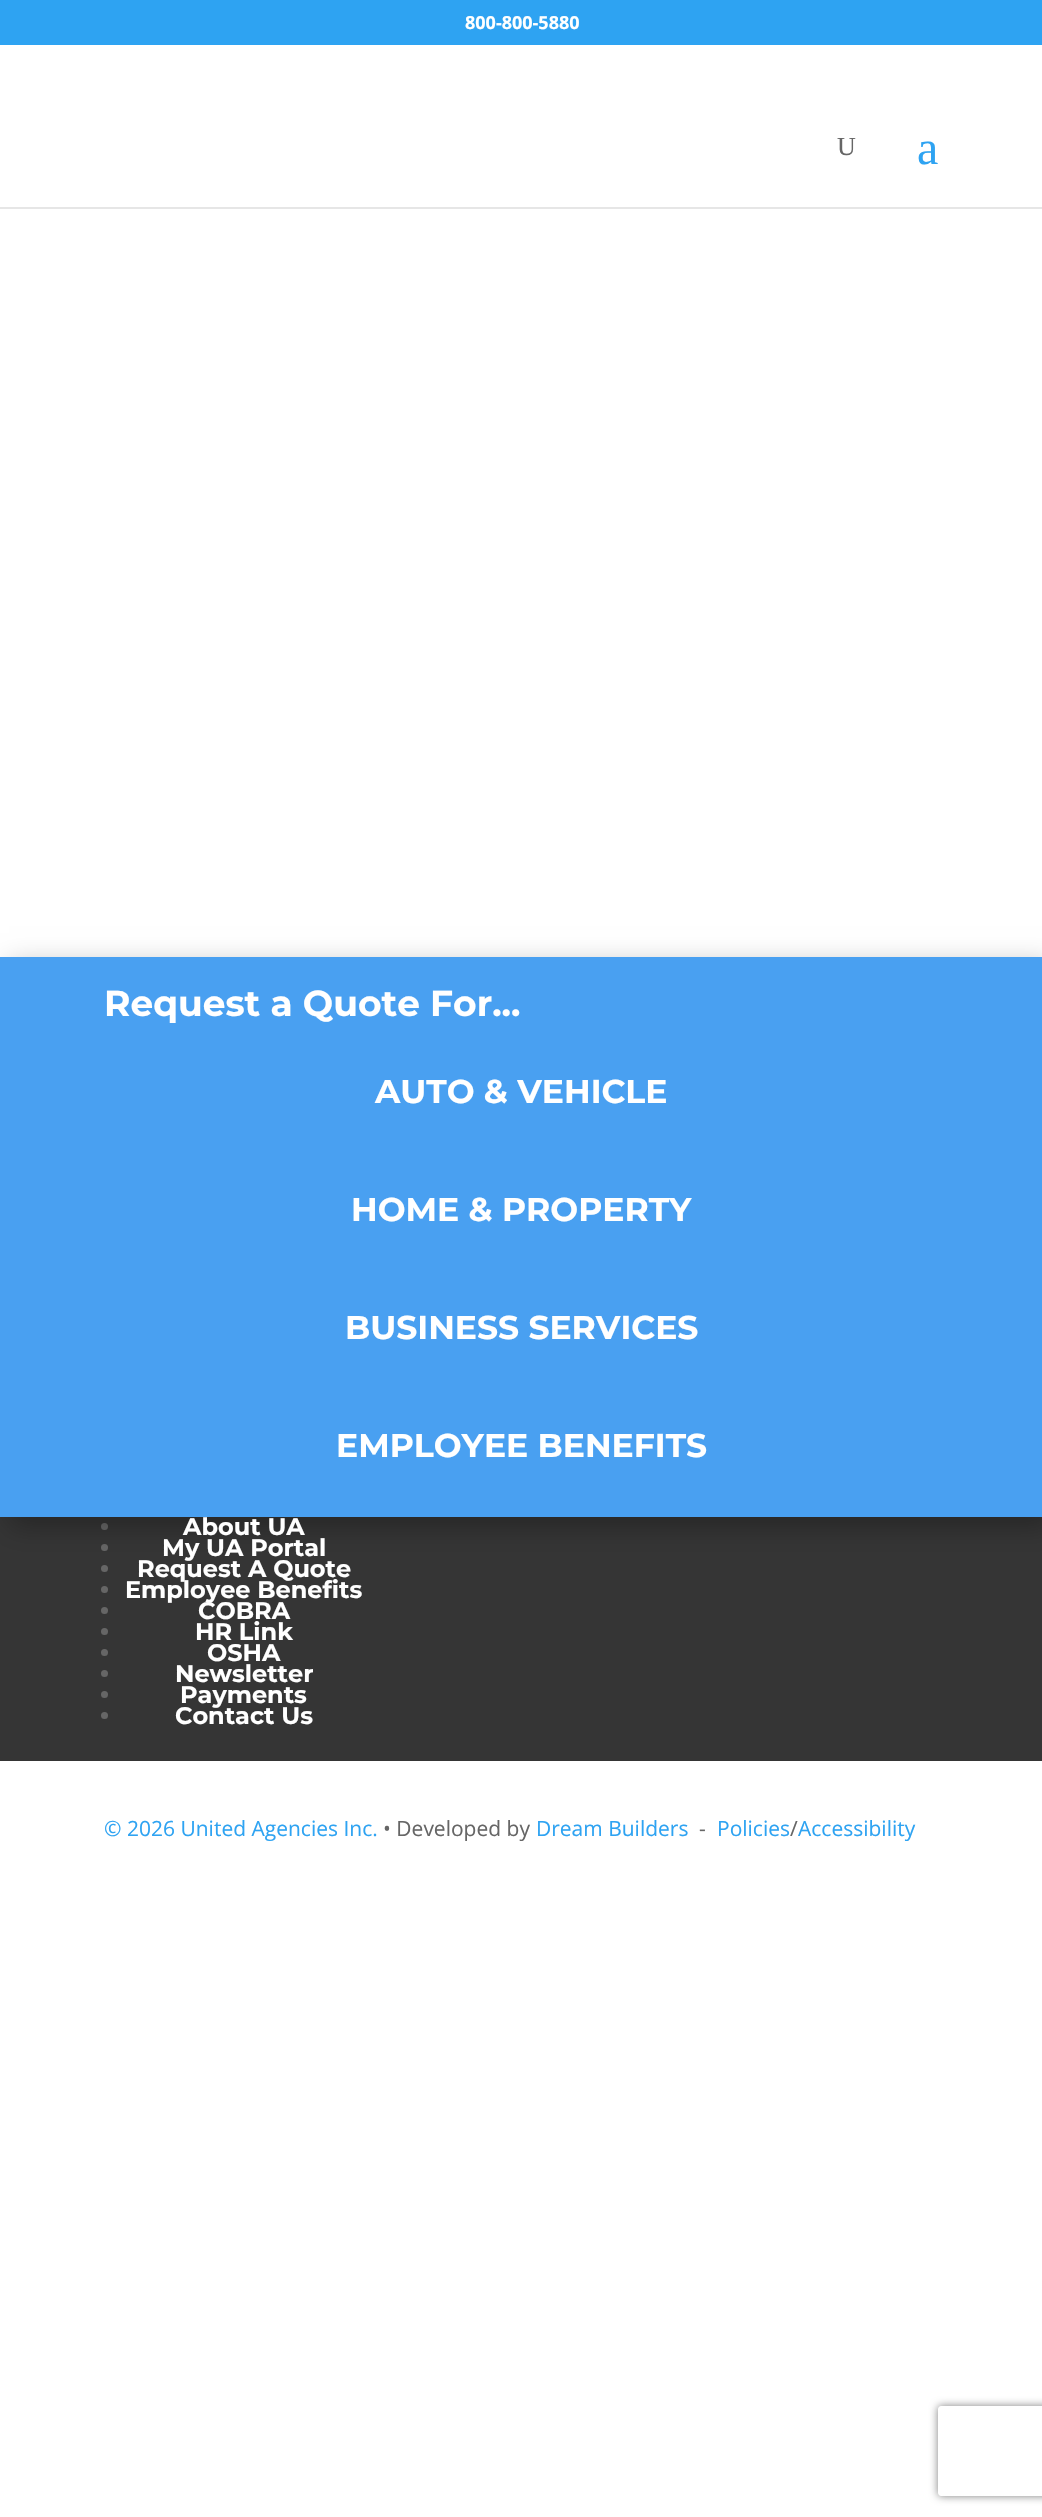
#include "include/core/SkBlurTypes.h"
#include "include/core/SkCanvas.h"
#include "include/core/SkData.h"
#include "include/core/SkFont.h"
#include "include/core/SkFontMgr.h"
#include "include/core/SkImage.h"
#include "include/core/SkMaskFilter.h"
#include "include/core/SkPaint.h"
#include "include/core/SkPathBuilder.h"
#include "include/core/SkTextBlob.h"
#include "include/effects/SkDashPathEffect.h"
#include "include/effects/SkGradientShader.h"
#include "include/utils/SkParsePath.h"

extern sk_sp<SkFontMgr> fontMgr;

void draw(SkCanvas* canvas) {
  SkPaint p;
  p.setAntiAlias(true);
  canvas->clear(SK_ColorWHITE);
  p.setColor(SkColorSetRGB(46, 163, 242));
  canvas->drawRect(SkRect::MakeLTRB(0, 0, 1042, 45), p);
  p.setColor(SkColorSetRGB(230, 230, 230));
  canvas->drawPath(SkPathBuilder().moveTo(0, 207).lineTo(0, 209).lineTo(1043, 209).lineTo(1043, 89).lineTo(1042, 89).lineTo(1042, 207).close().detach(), p);
  p.setColor(SkColorSetRGB(53, 53, 53));
  canvas->drawRect(SkRect::MakeLTRB(0, 1517, 1042, 1761), p);
  p.setColor(SkColorSetRGB(102, 102, 102));
  canvas->drawCircle(104.5f, 1526.5f, 3.5f, p);
  canvas->drawCircle(104.5f, 1547.5f, 3.5f, p);
  canvas->drawCircle(104.5f, 1568.5f, 3.5f, p);
  p.setColor(SkColorSetARGB(77, 0, 0, 0));
  p.setMaskFilter(SkMaskFilter::MakeBlur(kNormal_SkBlurStyle, 13.5f));
  canvas->drawRect(SkRect::MakeLTRB(9, 966, 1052, 1526), p);
  p.setMaskFilter(nullptr);
  p.setColor(SkColorSetRGB(73, 160, 241));
  canvas->drawRect(SkRect::MakeLTRB(0, 957, 1042, 1517), p);
  p.setColor(SkColorSetRGB(102, 102, 102));
  canvas->drawCircle(104.5f, 1589.5f, 3.5f, p);
  canvas->drawCircle(104.5f, 1610.5f, 3.5f, p);
  canvas->drawCircle(104.5f, 1631.5f, 3.5f, p);
  canvas->drawCircle(104.5f, 1652.5f, 3.5f, p);
  canvas->drawCircle(104.5f, 1673.5f, 3.5f, p);
  canvas->drawCircle(104.5f, 1694.5f, 3.5f, p);
  canvas->drawCircle(104.5f, 1715.5f, 3.5f, p);
  canvas->save();
  canvas->clipPath(SkPathBuilder(SkPathFillType::kEvenOdd).moveTo(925, 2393).lineTo(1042, 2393).lineTo(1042, 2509).lineTo(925, 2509).close().moveTo(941, 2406).lineTo(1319, 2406).cubicTo(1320.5f, 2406, 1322, 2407.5f, 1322, 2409).lineTo(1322, 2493).cubicTo(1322, 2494.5f, 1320.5f, 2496, 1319, 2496).lineTo(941, 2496).cubicTo(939.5f, 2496, 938, 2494.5f, 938, 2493).lineTo(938, 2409).cubicTo(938, 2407.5f, 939.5f, 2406, 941, 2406).close().detach(), true);
  p.setColor(SkColorSetRGB(128, 128, 128));
  p.setMaskFilter(SkMaskFilter::MakeBlur(kNormal_SkBlurStyle, 4));
  canvas->drawRoundRect(SkRect::MakeLTRB(938, 2406, 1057, 2496), 3, 3, p);
  p.setMaskFilter(nullptr);
  canvas->restore();
  SkFont font1(fontMgr->matchFamilyStyle("Open Sans", SkFontStyle::Bold()), 18);
  font1.setSubpixel(true);
  p.setColor(SK_ColorWHITE);
  canvas->drawString("800-800-5880", 465, 29, font1, p);
  SkFont font2(fontMgr->matchFamilyStyle("Liberation Serif", SkFontStyle::Normal()), 26);
  font2.setSubpixel(true);
  p.setColor(SkColorSetRGB(102, 102, 102));
  canvas->drawString("U", 837, 155, font2, p);
  SkFont font3(fontMgr->matchFamilyStyle("Liberation Serif", SkFontStyle::Normal()), 48);
  font3.setSubpixel(true);
  p.setColor(SkColorSetRGB(46, 163, 242));
  canvas->drawString("a", 917, 164, font3, p);
  SkFont font4(fontMgr->matchFamilyStyle("Montserrat", SkFontStyle(100, SkFontStyle::kNormal_Width, SkFontStyle::kUpright_Slant)), 36);
  font4.setSubpixel(true);
  p.setColor(SK_ColorWHITE);
  canvas->drawString("Request a Quote For...", 104, 1016, font4, p);
  SkFont font5(fontMgr->matchFamilyStyle("Montserrat", SkFontStyle(100, SkFontStyle::kNormal_Width, SkFontStyle::kUpright_Slant)), 33);
  font5.setSubpixel(true);
  canvas->drawString("AUTO & VEHICLE", 375, 1103, font5, p);
  canvas->drawString("HOME & PROPERTY", 351, 1221, font5, p);
  canvas->drawString("BUSINESS SERVICES", 345, 1339, font5, p);
  canvas->drawString("EMPLOYEE BENEFITS", 336, 1457, font5, p);
  SkFont font6(fontMgr->matchFamilyStyle("Montserrat", SkFontStyle(100, SkFontStyle::kNormal_Width, SkFontStyle::kUpright_Slant)), 24);
  font6.setSubpixel(true);
  canvas->drawString("About UA", 183, 1535, font6, p);
  canvas->drawString("My UA Portal", 162, 1556, font6, p);
  canvas->drawString("Request A Quote", 137, 1577, font6, p);
  canvas->drawString("Employee Benefits", 125, 1598, font6, p);
  canvas->drawString("COBRA", 198, 1619, font6, p);
  canvas->drawString("HR Link", 195, 1640, font6, p);
  canvas->drawString("OSHA", 207, 1661, font6, p);
  canvas->drawString("Newsletter", 175, 1682, font6, p);
  canvas->drawString("Payments", 180, 1703, font6, p);
  canvas->drawString("Contact Us", 175, 1724, font6, p);
  SkFont font7(fontMgr->matchFamilyStyle("Open Sans", SkFontStyle::Normal()), 21);
  font7.setSubpixel(true);
  p.setColor(SkColorSetRGB(46, 163, 242));
  canvas->drawString("© 2026 United Agencies Inc.", 104, 1836, font7, p);
  p.setColor(SkColorSetRGB(102, 102, 102));
  canvas->drawString("• Developed by", 383, 1836, font7, p);
  p.setColor(SkColorSetRGB(46, 163, 242));
  canvas->drawString("Dream Builders", 536, 1836, font7, p);
  p.setColor(SkColorSetRGB(102, 102, 102));
  canvas->drawString("-", 699, 1836, font7, p);
  p.setColor(SkColorSetRGB(46, 163, 242));
  canvas->drawString("Policies", 717, 1836, font7, p);
  p.setColor(SkColorSetRGB(102, 102, 102));
  canvas->drawString("/", 790, 1836, font7, p);
  p.setColor(SkColorSetRGB(46, 163, 242));
  canvas->drawString("Accessibility", 798, 1836, font7, p);
}
